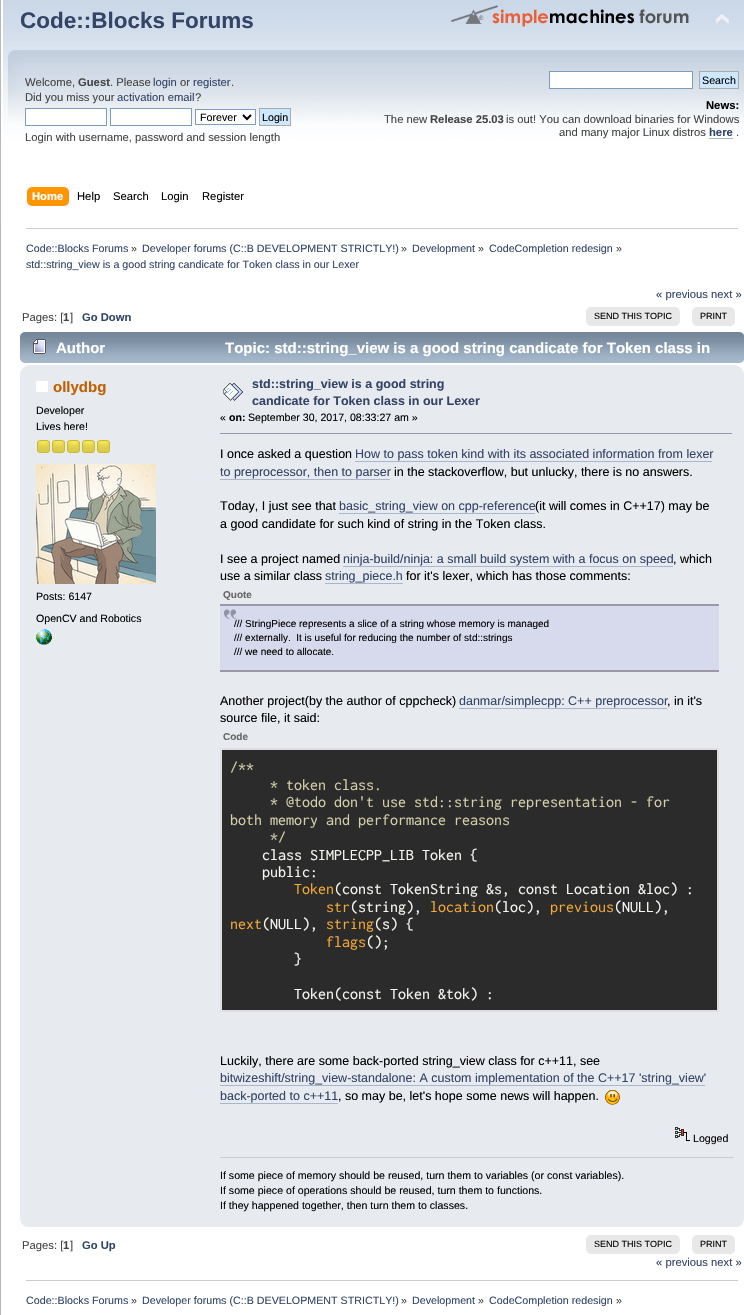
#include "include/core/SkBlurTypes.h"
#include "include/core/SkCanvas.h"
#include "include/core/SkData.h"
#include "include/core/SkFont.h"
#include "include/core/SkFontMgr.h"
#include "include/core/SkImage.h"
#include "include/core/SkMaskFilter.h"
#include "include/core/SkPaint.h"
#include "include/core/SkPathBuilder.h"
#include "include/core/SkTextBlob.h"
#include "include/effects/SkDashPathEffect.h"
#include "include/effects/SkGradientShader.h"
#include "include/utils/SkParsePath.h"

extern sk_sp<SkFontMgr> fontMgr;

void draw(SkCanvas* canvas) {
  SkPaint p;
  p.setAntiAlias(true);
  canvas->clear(SK_ColorWHITE);
  canvas->drawImageRect(SkImages::DeferredFromEncodedData(SkData::MakeFromFileName("images/1.png")), SkRect::MakeLTRB(0, 0, 744, 222), SkSamplingOptions());
  canvas->drawImageRect(SkImages::DeferredFromEncodedData(SkData::MakeFromFileName("images/2.png")), SkRect::MakeLTRB(451, 5, 689, 27), SkSamplingOptions());
  canvas->drawImageRect(SkImages::DeferredFromEncodedData(SkData::MakeFromFileName("images/3.png")), SkRect::MakeLTRB(715, 13, 730, 25), SkSamplingOptions());
  p.setColor(SK_ColorWHITE);
  canvas->drawRect(SkRect::MakeLTRB(25.5f, 108.5f, 106.5f, 125.5f), p);
  p.setStyle(SkPaint::kStroke_Style);
  p.setStrokeWidth(1);
  p.setColor(SkColorSetRGB(127, 157, 185));
  canvas->drawRect(SkRect::MakeLTRB(25.5f, 108.5f, 106.5f, 125.5f), p);
  p.setStyle(SkPaint::kFill_Style);
  p.setColor(SK_ColorWHITE);
  canvas->drawRect(SkRect::MakeLTRB(110.5f, 108.5f, 191.5f, 125.5f), p);
  p.setStyle(SkPaint::kStroke_Style);
  p.setColor(SkColorSetRGB(127, 157, 185));
  canvas->drawRect(SkRect::MakeLTRB(110.5f, 108.5f, 191.5f, 125.5f), p);
  p.setStyle(SkPaint::kFill_Style);
  p.setColor(SK_ColorWHITE);
  canvas->drawRect(SkRect::MakeLTRB(195.5f, 109.5f, 255.5f, 124.5f), p);
  p.setStyle(SkPaint::kStroke_Style);
  p.setColor(SkColorSetRGB(127, 157, 185));
  canvas->drawRect(SkRect::MakeLTRB(195.5f, 109.5f, 255.5f, 124.5f), p);
  p.setStrokeWidth(2);
  p.setColor(SK_ColorBLACK);
  canvas->drawPath(SkPathBuilder().moveTo(243, 115).lineTo(247, 119).lineTo(251, 115).detach(), p);
  p.setStyle(SkPaint::kFill_Style);
  p.setColor(SkColorSetRGB(205, 231, 255));
  canvas->drawRect(SkRect::MakeLTRB(259.5f, 108.5f, 290.5f, 125.5f), p);
  p.setStyle(SkPaint::kStroke_Style);
  p.setStrokeWidth(1);
  p.setColor(SkColorSetRGB(170, 170, 170));
  canvas->drawRect(SkRect::MakeLTRB(259.5f, 108.5f, 290.5f, 125.5f), p);
  p.setStyle(SkPaint::kFill_Style);
  p.setColor(SK_ColorWHITE);
  canvas->drawRect(SkRect::MakeLTRB(549.5f, 71.5f, 692.5f, 88.5f), p);
  p.setStyle(SkPaint::kStroke_Style);
  p.setColor(SkColorSetRGB(127, 157, 185));
  canvas->drawRect(SkRect::MakeLTRB(549.5f, 71.5f, 692.5f, 88.5f), p);
  p.setStyle(SkPaint::kFill_Style);
  p.setColor(SkColorSetRGB(205, 231, 255));
  canvas->drawRect(SkRect::MakeLTRB(699.5f, 71.5f, 738.5f, 88.5f), p);
  p.setStyle(SkPaint::kStroke_Style);
  p.setColor(SkColorSetRGB(170, 170, 170));
  canvas->drawRect(SkRect::MakeLTRB(699.5f, 71.5f, 738.5f, 88.5f), p);
  p.setStyle(SkPaint::kFill_Style);
  p.setColor(SkColorSetRGB(168, 182, 207));
  canvas->drawRect(SkRect::MakeLTRB(709, 138, 733, 139), p);
  canvas->drawImageRect(SkImages::DeferredFromEncodedData(SkData::MakeFromFileName("images/4.png")), SkRect::MakeLTRB(32, 187, 69, 206), SkSamplingOptions());
  canvas->drawImageRect(SkImages::DeferredFromEncodedData(SkData::MakeFromFileName("images/5.png")), SkRect::MakeLTRB(27, 187, 32, 206), SkSamplingOptions());
  p.setColor(SkColorSetRGB(183, 183, 183));
  canvas->drawRect(SkRect::MakeLTRB(0, 222, 1, 1315), p);
  p.setColor(SkColorSetRGB(204, 204, 204));
  canvas->drawRect(SkRect::MakeLTRB(26, 228, 738, 229), p);
  p.setColor(SkColorSetRGB(232, 232, 232));
  canvas->drawRect(SkRect::MakeLTRB(590, 307, 676, 326), p);
  canvas->drawImageRect(SkImages::DeferredFromEncodedData(SkData::MakeFromFileName("images/6.png")), SkRect::MakeLTRB(586, 307, 590, 326), SkSamplingOptions());
  canvas->drawImageRect(SkImages::DeferredFromEncodedData(SkData::MakeFromFileName("images/7.png")), SkRect::MakeLTRB(676, 307, 680, 326), SkSamplingOptions());
  canvas->drawRect(SkRect::MakeLTRB(696, 307, 731, 326), p);
  canvas->drawImageRect(SkImages::DeferredFromEncodedData(SkData::MakeFromFileName("images/6.png")), SkRect::MakeLTRB(692, 307, 696, 326), SkSamplingOptions());
  canvas->drawImageRect(SkImages::DeferredFromEncodedData(SkData::MakeFromFileName("images/7.png")), SkRect::MakeLTRB(731, 307, 735, 326), SkSamplingOptions());
  canvas->drawImageRect(SkImages::DeferredFromEncodedData(SkData::MakeFromFileName("images/8.png")), SkRect::MakeLTRB(20, 332, 739, 363), SkSamplingOptions());
  canvas->drawImageRect(SkImages::DeferredFromEncodedData(SkData::MakeFromFileName("images/9.png")), SkRect::MakeLTRB(739, 332, 744, 363), SkSamplingOptions());
  canvas->drawImageRect(SkImages::DeferredFromEncodedData(SkData::MakeFromFileName("images/10.png")), SkRect::MakeLTRB(33, 339, 46, 354), SkSamplingOptions());
  p.setColor(SkColorSetRGB(231, 234, 239));
  canvas->drawRect(SkRect::MakeLTRB(20, 365, 744, 1227), p);
  canvas->drawImageRect(SkImages::DeferredFromEncodedData(SkData::MakeFromFileName("images/11.png")), SkRect::MakeLTRB(20, 365, 29, 374), SkSamplingOptions());
  canvas->drawImageRect(SkImages::DeferredFromEncodedData(SkData::MakeFromFileName("images/12.png")), SkRect::MakeLTRB(735, 365, 744, 373), SkSamplingOptions());
  p.setColor(SK_ColorWHITE);
  canvas->drawRect(SkRect::MakeLTRB(36, 381, 48, 392), p);
  canvas->drawImageRect(SkImages::DeferredFromEncodedData(SkData::MakeFromFileName("images/13.png")), SkRect::MakeLTRB(37, 440, 50, 453), SkSamplingOptions());
  canvas->drawImageRect(SkImages::DeferredFromEncodedData(SkData::MakeFromFileName("images/13.png")), SkRect::MakeLTRB(52, 440, 65, 453), SkSamplingOptions());
  canvas->drawImageRect(SkImages::DeferredFromEncodedData(SkData::MakeFromFileName("images/13.png")), SkRect::MakeLTRB(67, 440, 80, 453), SkSamplingOptions());
  canvas->drawImageRect(SkImages::DeferredFromEncodedData(SkData::MakeFromFileName("images/13.png")), SkRect::MakeLTRB(82, 440, 95, 453), SkSamplingOptions());
  canvas->drawImageRect(SkImages::DeferredFromEncodedData(SkData::MakeFromFileName("images/13.png")), SkRect::MakeLTRB(97, 440, 110, 453), SkSamplingOptions());
  canvas->drawImageRect(SkImages::DeferredFromEncodedData(SkData::MakeFromFileName("images/14.png")), SkRect::MakeLTRB(36, 464, 156, 584), SkSamplingOptions());
  canvas->drawImageRect(SkImages::DeferredFromEncodedData(SkData::MakeFromFileName("images/15.png")), SkRect::MakeLTRB(36, 629, 52, 645), SkSamplingOptions());
  canvas->drawImageRect(SkImages::DeferredFromEncodedData(SkData::MakeFromFileName("images/16.png")), SkRect::MakeLTRB(223, 383, 243, 401), SkSamplingOptions());
  p.setColor(SkColorSetRGB(153, 153, 170));
  canvas->drawRect(SkRect::MakeLTRB(220, 433, 732, 434), p);
  p.setColor(SkColorSetRGB(168, 182, 207));
  canvas->drawRect(SkRect::MakeLTRB(355, 461, 712, 462), p);
  canvas->drawRect(SkRect::MakeLTRB(220, 479, 390, 480), p);
  canvas->drawRect(SkRect::MakeLTRB(339, 513, 535, 514), p);
  canvas->drawRect(SkRect::MakeLTRB(343, 566, 673, 567), p);
  canvas->drawRect(SkRect::MakeLTRB(325, 583, 403, 584), p);
  p.setColor(SkColorSetRGB(215, 218, 236));
  canvas->drawRect(SkRect::MakeLTRB(220, 606, 719, 670), p);
  canvas->drawImageRect(SkImages::DeferredFromEncodedData(SkData::MakeFromFileName("images/17.png")), SkRect::MakeLTRB(224, 609, 237, 620), SkSamplingOptions());
  p.setColor(SkColorSetRGB(153, 153, 170));
  canvas->drawRect(SkRect::MakeLTRB(220, 604, 719, 606), p);
  canvas->drawRect(SkRect::MakeLTRB(220, 670, 719, 672), p);
  p.setColor(SkColorSetRGB(168, 182, 207));
  canvas->drawRect(SkRect::MakeLTRB(459, 708, 667, 709), p);
  p.setStyle(SkPaint::kStroke_Style);
  p.setStrokeWidth(2);
  p.setColor(SkColorSetRGB(221, 221, 221));
  canvas->drawRoundRect(SkRect::MakeLTRB(221, 749, 718, 1011), 1, 1, p);
  p.setStyle(SkPaint::kFill_Style);
  p.setColor(SkColorSetRGB(43, 43, 43));
  canvas->drawRect(SkRect::MakeLTRB(222, 750, 717, 1010), p);
  p.setColor(SkColorSetRGB(168, 182, 207));
  canvas->drawRect(SkRect::MakeLTRB(220, 1085, 705, 1086), p);
  canvas->drawRect(SkRect::MakeLTRB(220, 1103, 338, 1104), p);
  canvas->drawImageRect(SkImages::DeferredFromEncodedData(SkData::MakeFromFileName("images/18.png")), SkRect::MakeLTRB(605, 1090, 620, 1105), SkSamplingOptions());
  canvas->drawImageRect(SkImages::DeferredFromEncodedData(SkData::MakeFromFileName("images/19.png")), SkRect::MakeLTRB(675, 1127, 690, 1141), SkSamplingOptions());
  p.setColor(SkColorSetRGB(204, 204, 204));
  canvas->drawRect(SkRect::MakeLTRB(220, 1157, 734, 1158), p);
  canvas->drawImageRect(SkImages::DeferredFromEncodedData(SkData::MakeFromFileName("images/20.png")), SkRect::MakeLTRB(20, 1219, 26, 1227), SkSamplingOptions());
  canvas->drawImageRect(SkImages::DeferredFromEncodedData(SkData::MakeFromFileName("images/21.png")), SkRect::MakeLTRB(738, 1219, 744, 1227), SkSamplingOptions());
  p.setColor(SkColorSetRGB(232, 232, 232));
  canvas->drawRect(SkRect::MakeLTRB(590, 1235, 676, 1254), p);
  canvas->drawImageRect(SkImages::DeferredFromEncodedData(SkData::MakeFromFileName("images/6.png")), SkRect::MakeLTRB(586, 1235, 590, 1254), SkSamplingOptions());
  canvas->drawImageRect(SkImages::DeferredFromEncodedData(SkData::MakeFromFileName("images/7.png")), SkRect::MakeLTRB(676, 1235, 680, 1254), SkSamplingOptions());
  canvas->drawRect(SkRect::MakeLTRB(696, 1235, 731, 1254), p);
  canvas->drawImageRect(SkImages::DeferredFromEncodedData(SkData::MakeFromFileName("images/6.png")), SkRect::MakeLTRB(692, 1235, 696, 1254), SkSamplingOptions());
  canvas->drawImageRect(SkImages::DeferredFromEncodedData(SkData::MakeFromFileName("images/7.png")), SkRect::MakeLTRB(731, 1235, 735, 1254), SkSamplingOptions());
  p.setColor(SkColorSetRGB(204, 204, 204));
  canvas->drawRect(SkRect::MakeLTRB(26, 1280, 738, 1281), p);
  SkFont font1(fontMgr->matchFamilyStyle("Liberation Sans", SkFontStyle::Bold()), 22.5f);
  font1.setSubpixel(true);
  p.setColor(SkColorSetRGB(51, 68, 102));
  canvas->drawString("Code::Blocks Forums", 20, 28, font1, p);
  SkFont font2(fontMgr->matchFamilyStyle("Liberation Sans", SkFontStyle::Normal()), 11.25f);
  font2.setSubpixel(true);
  p.setColor(SkColorSetRGB(68, 68, 68));
  canvas->drawString("Welcome,", 25, 86, font2, p);
  SkFont font3(fontMgr->matchFamilyStyle("Liberation Sans", SkFontStyle::Bold()), 11.25f);
  font3.setSubpixel(true);
  canvas->drawString("Guest", 78, 86, font3, p);
  canvas->drawString(". Please", 110, 86, font2, p);
  p.setColor(SkColorSetRGB(51, 68, 102));
  canvas->drawString("login", 153, 86, font2, p);
  p.setColor(SkColorSetRGB(68, 68, 68));
  canvas->drawString("or", 180, 86, font2, p);
  p.setColor(SkColorSetRGB(51, 68, 102));
  canvas->drawString("register", 193, 86, font2, p);
  p.setColor(SkColorSetRGB(68, 68, 68));
  canvas->drawString(".", 231, 86, font2, p);
  canvas->drawString("Did you miss your", 25, 101, font2, p);
  p.setColor(SkColorSetRGB(51, 68, 102));
  canvas->drawString("activation email", 117, 101, font2, p);
  p.setColor(SkColorSetRGB(68, 68, 68));
  canvas->drawString("?", 195, 101, font2, p);
  SkFont font4(fontMgr->matchFamilyStyle("Liberation Sans", SkFontStyle::Normal()), 10.7f);
  font4.setSubpixel(true);
  p.setColor(SK_ColorBLACK);
  canvas->drawString("Forever", 200, 121, font4, p);
  canvas->drawString("Login", 262, 121, font4, p);
  p.setColor(SkColorSetRGB(68, 68, 68));
  canvas->drawString("Login with username, password and session length", 25, 141, font2, p);
  p.setColor(SK_ColorBLACK);
  canvas->drawString("Search", 702, 84, font4, p);
  canvas->drawString("News:", 706, 109, font3, p);
  p.setColor(SkColorSetRGB(68, 68, 68));
  canvas->drawString("The new", 384, 123, font2, p);
  canvas->drawString("Release 25.03", 430, 123, font3, p);
  canvas->drawString("is out! You can download binaries for Windows", 506, 123, font2, p);
  canvas->drawString("and many major Linux distros", 559, 136, font2, p);
  p.setColor(SkColorSetRGB(51, 68, 102));
  canvas->drawString("here", 709, 136, font3, p);
  p.setColor(SkColorSetRGB(68, 68, 68));
  canvas->drawString(".", 736, 136, font2, p);
  p.setColor(SK_ColorWHITE);
  canvas->drawString("Home", 32, 200, font3, p);
  p.setColor(SK_ColorBLACK);
  canvas->drawString("Help", 77, 200, font2, p);
  canvas->drawString("Search", 113, 200, font2, p);
  canvas->drawString("Login", 161, 200, font2, p);
  canvas->drawString("Register", 202, 200, font2, p);
  p.setColor(SkColorSetRGB(51, 68, 102));
  canvas->drawString("Code::Blocks Forums", 26, 252, font4, p);
  p.setColor(SkColorSetRGB(68, 68, 68));
  canvas->drawString("»", 131, 252, font4, p);
  p.setColor(SkColorSetRGB(51, 68, 102));
  canvas->drawString("Developer forums (C::B DEVELOPMENT STRICTLY!)", 142, 252, font4, p);
  p.setColor(SkColorSetRGB(68, 68, 68));
  canvas->drawString("»", 401, 252, font4, p);
  p.setColor(SkColorSetRGB(51, 68, 102));
  canvas->drawString("Development", 412, 252, font4, p);
  p.setColor(SkColorSetRGB(68, 68, 68));
  canvas->drawString("»", 478, 252, font4, p);
  p.setColor(SkColorSetRGB(51, 68, 102));
  canvas->drawString("CodeCompletion redesign", 489, 252, font4, p);
  p.setColor(SkColorSetRGB(68, 68, 68));
  canvas->drawString("»", 616, 252, font4, p);
  p.setColor(SkColorSetRGB(51, 68, 102));
  canvas->drawString("std::string_view is a good string candicate for Token class in our Lexer", 26, 268, font4, p);
  canvas->drawString("« previous next »", 656, 298, font2, p);
  p.setColor(SkColorSetRGB(68, 68, 68));
  canvas->drawString("Pages: [", 22, 321, font2, p);
  canvas->drawString("1", 63, 321, font3, p);
  canvas->drawString("]", 70, 321, font2, p);
  p.setColor(SkColorSetRGB(51, 68, 102));
  canvas->drawString("Go Down", 82, 321, font3, p);
  SkFont font5(fontMgr->matchFamilyStyle("Liberation Sans", SkFontStyle::Normal()), 9);
  font5.setSubpixel(true);
  p.setColor(SK_ColorBLACK);
  canvas->drawString("SEND THIS TOPIC", 594, 319, font5, p);
  canvas->drawString("PRINT", 700, 319, font5, p);
  SkFont font6(fontMgr->matchFamilyStyle("Liberation Sans", SkFontStyle::Bold()), 15);
  font6.setSubpixel(true);
  p.setColor(SK_ColorWHITE);
  canvas->drawString("Author", 56, 353, font6, p);
  canvas->drawString("Topic: std::string_view is a good string candicate for Token class in", 225, 353, font6, p);
  p.setColor(SkColorSetRGB(192, 96, 2));
  canvas->drawString("ollydbg", 53, 392, font6, p);
  SkFont font7(fontMgr->matchFamilyStyle("Liberation Sans", SkFontStyle::Normal()), 10.6f);
  font7.setSubpixel(true);
  p.setColor(SK_ColorBLACK);
  canvas->drawString("Developer", 36, 414, font7, p);
  canvas->drawString("Lives here!", 36, 430, font7, p);
  canvas->drawString("Posts: 6147", 36, 600, font7, p);
  canvas->drawString("OpenCV and Robotics", 36, 622, font7, p);
  SkFont font8(fontMgr->matchFamilyStyle("Liberation Sans", SkFontStyle::Bold()), 12.5f);
  font8.setSubpixel(true);
  p.setColor(SkColorSetRGB(51, 68, 102));
  canvas->drawString("std::string_view is a good string", 252, 388, font8, p);
  canvas->drawString("candicate for Token class in our Lexer", 252, 405, font8, p);
  p.setColor(SK_ColorBLACK);
  canvas->drawString("«", 220, 421, font7, p);
  SkFont font9(fontMgr->matchFamilyStyle("Liberation Sans", SkFontStyle::Bold()), 10.6f);
  font9.setSubpixel(true);
  canvas->drawString("on:", 229, 421, font9, p);
  canvas->drawString("September 30, 2017, 08:33:27 am »", 248, 421, font7, p);
  SkFont font10(fontMgr->matchFamilyStyle("Liberation Sans", SkFontStyle::Normal()), 12.5f);
  font10.setSubpixel(true);
  canvas->drawString("I once asked a question", 220, 458, font10, p);
  p.setColor(SkColorSetRGB(51, 68, 102));
  canvas->drawString("How to pass token kind with its associated information from lexer", 355, 458, font10, p);
  canvas->drawString("to preprocessor, then to parser", 220, 476, font10, p);
  p.setColor(SK_ColorBLACK);
  canvas->drawString("in the stackoverflow, but unlucky, there is no answers.", 394, 476, font10, p);
  canvas->drawString("Today, I just see that", 220, 510, font10, p);
  p.setColor(SkColorSetRGB(51, 68, 102));
  canvas->drawString("basic_string_view on cpp-reference", 339, 510, font10, p);
  p.setColor(SK_ColorBLACK);
  canvas->drawString("(it will comes in C++17) may be", 535, 510, font10, p);
  canvas->drawString("a good candidate for such kind of string in the Token class.", 220, 528, font10, p);
  canvas->drawString("I see a project named", 220, 563, font10, p);
  p.setColor(SkColorSetRGB(51, 68, 102));
  canvas->drawString("ninja-build/ninja: a small build system with a focus on speed", 343, 563, font10, p);
  p.setColor(SK_ColorBLACK);
  canvas->drawString(", which", 673, 563, font10, p);
  canvas->drawString("use a similar class", 220, 580, font10, p);
  p.setColor(SkColorSetRGB(51, 68, 102));
  canvas->drawString("string_piece.h", 325, 580, font10, p);
  p.setColor(SK_ColorBLACK);
  canvas->drawString("for it's lexer, which has those comments:", 406, 580, font10, p);
  SkFont font11(fontMgr->matchFamilyStyle("Liberation Sans", SkFontStyle::Bold()), 10);
  font11.setSubpixel(true);
  p.setColor(SkColorSetRGB(102, 102, 102));
  canvas->drawString("Quote", 223, 598, font11, p);
  SkFont font12(fontMgr->matchFamilyStyle("Liberation Sans", SkFontStyle::Normal()), 10);
  font12.setSubpixel(true);
  p.setColor(SK_ColorBLACK);
  canvas->drawString("/// StringPiece represents a slice of a string whose memory is managed", 234, 627, font12, p);
  canvas->drawString("/// externally.  It is useful for reducing the number of std::strings", 234, 641, font12, p);
  canvas->drawString("/// we need to allocate.", 234, 655, font12, p);
  canvas->drawString("Another project(by the author of cppcheck)", 220, 705, font10, p);
  p.setColor(SkColorSetRGB(51, 68, 102));
  canvas->drawString("danmar/simplecpp: C++ preprocessor", 459, 705, font10, p);
  p.setColor(SK_ColorBLACK);
  canvas->drawString(", in it's", 667, 705, font10, p);
  canvas->drawString("source file, it said:", 220, 722, font10, p);
  p.setColor(SkColorSetRGB(102, 102, 102));
  canvas->drawString("Code", 223, 740, font11, p);
  SkFont font13(fontMgr->matchFamilyStyle("Inconsolata", SkFontStyle::Normal()), 16);
  font13.setSubpixel(true);
  p.setColor(SkColorSetRGB(212, 208, 171));
  canvas->drawString("/**", 230, 772, font13, p);
  canvas->drawString("* token class.", 270, 790, font13, p);
  canvas->drawString("* @todo don't use std::string representation - for", 270, 807, font13, p);
  canvas->drawString("both memory and performance reasons", 230, 825, font13, p);
  canvas->drawString("*/", 270, 842, font13, p);
  p.setColor(SkColorSetRGB(248, 248, 242));
  canvas->drawString("class SIMPLECPP_LIB Token {", 262, 860, font13, p);
  canvas->drawString("public:", 262, 877, font13, p);
  p.setColor(SkColorSetRGB(245, 171, 53));
  canvas->drawString("Token", 294, 894, font13, p);
  p.setColor(SkColorSetRGB(248, 248, 242));
  canvas->drawString("(const TokenString &s, const Location &loc) :", 334, 894, font13, p);
  p.setColor(SkColorSetRGB(245, 171, 53));
  canvas->drawString("str", 326, 912, font13, p);
  p.setColor(SkColorSetRGB(248, 248, 242));
  canvas->drawString("(string),", 350, 912, font13, p);
  p.setColor(SkColorSetRGB(245, 171, 53));
  canvas->drawString("location", 430, 912, font13, p);
  p.setColor(SkColorSetRGB(248, 248, 242));
  canvas->drawString("(loc),", 494, 912, font13, p);
  p.setColor(SkColorSetRGB(245, 171, 53));
  canvas->drawString("previous", 550, 912, font13, p);
  p.setColor(SkColorSetRGB(248, 248, 242));
  canvas->drawString("(NULL),", 614, 912, font13, p);
  p.setColor(SkColorSetRGB(245, 171, 53));
  canvas->drawString("next", 230, 929, font13, p);
  p.setColor(SkColorSetRGB(248, 248, 242));
  canvas->drawString("(NULL),", 262, 929, font13, p);
  p.setColor(SkColorSetRGB(245, 171, 53));
  canvas->drawString("string", 326, 929, font13, p);
  p.setColor(SkColorSetRGB(248, 248, 242));
  canvas->drawString("(s) {", 374, 929, font13, p);
  p.setColor(SkColorSetRGB(245, 171, 53));
  canvas->drawString("flags", 326, 947, font13, p);
  p.setColor(SkColorSetRGB(248, 248, 242));
  canvas->drawString("();", 366, 947, font13, p);
  canvas->drawString("}", 294, 964, font13, p);
  canvas->drawString("Token(const Token &tok) :", 294, 999, font13, p);
  p.setColor(SK_ColorBLACK);
  canvas->drawString("Luckily, there are some back-ported string_view class for c++11, see", 220, 1065, font10, p);
  p.setColor(SkColorSetRGB(51, 68, 102));
  canvas->drawString("bitwizeshift/string_view-standalone: A custom implementation of the C++17 'string_view'", 220, 1082, font10, p);
  canvas->drawString("back-ported to c++11", 220, 1100, font10, p);
  p.setColor(SK_ColorBLACK);
  canvas->drawString(", so may be, let's hope some news will happen.", 338, 1100, font10, p);
  canvas->drawString("Logged", 693, 1142, font7, p);
  canvas->drawString("If some piece of memory should be reused, turn them to variables (or const variables).", 220, 1179, font7, p);
  canvas->drawString("If some piece of operations should be reused, turn them to functions.", 220, 1194, font7, p);
  canvas->drawString("If they happened together, then turn them to classes.", 220, 1209, font7, p);
  p.setColor(SkColorSetRGB(68, 68, 68));
  canvas->drawString("Pages: [", 22, 1249, font2, p);
  canvas->drawString("1", 63, 1249, font3, p);
  canvas->drawString("]", 70, 1249, font2, p);
  p.setColor(SkColorSetRGB(51, 68, 102));
  canvas->drawString("Go Up", 82, 1249, font3, p);
  p.setColor(SK_ColorBLACK);
  canvas->drawString("SEND THIS TOPIC", 594, 1247, font5, p);
  canvas->drawString("PRINT", 700, 1247, font5, p);
  p.setColor(SkColorSetRGB(51, 68, 102));
  canvas->drawString("« previous next »", 656, 1266, font2, p);
  canvas->drawString("Code::Blocks Forums", 26, 1304, font4, p);
  p.setColor(SkColorSetRGB(68, 68, 68));
  canvas->drawString("»", 131, 1304, font4, p);
  p.setColor(SkColorSetRGB(51, 68, 102));
  canvas->drawString("Developer forums (C::B DEVELOPMENT STRICTLY!)", 142, 1304, font4, p);
  p.setColor(SkColorSetRGB(68, 68, 68));
  canvas->drawString("»", 401, 1304, font4, p);
  p.setColor(SkColorSetRGB(51, 68, 102));
  canvas->drawString("Development", 412, 1304, font4, p);
  p.setColor(SkColorSetRGB(68, 68, 68));
  canvas->drawString("»", 478, 1304, font4, p);
  p.setColor(SkColorSetRGB(51, 68, 102));
  canvas->drawString("CodeCompletion redesign", 489, 1304, font4, p);
  p.setColor(SkColorSetRGB(68, 68, 68));
  canvas->drawString("»", 616, 1304, font4, p);
}
